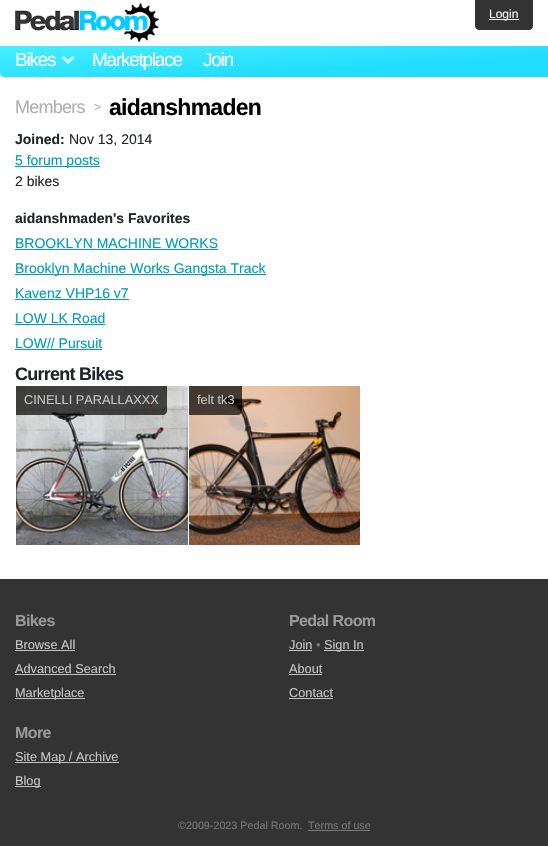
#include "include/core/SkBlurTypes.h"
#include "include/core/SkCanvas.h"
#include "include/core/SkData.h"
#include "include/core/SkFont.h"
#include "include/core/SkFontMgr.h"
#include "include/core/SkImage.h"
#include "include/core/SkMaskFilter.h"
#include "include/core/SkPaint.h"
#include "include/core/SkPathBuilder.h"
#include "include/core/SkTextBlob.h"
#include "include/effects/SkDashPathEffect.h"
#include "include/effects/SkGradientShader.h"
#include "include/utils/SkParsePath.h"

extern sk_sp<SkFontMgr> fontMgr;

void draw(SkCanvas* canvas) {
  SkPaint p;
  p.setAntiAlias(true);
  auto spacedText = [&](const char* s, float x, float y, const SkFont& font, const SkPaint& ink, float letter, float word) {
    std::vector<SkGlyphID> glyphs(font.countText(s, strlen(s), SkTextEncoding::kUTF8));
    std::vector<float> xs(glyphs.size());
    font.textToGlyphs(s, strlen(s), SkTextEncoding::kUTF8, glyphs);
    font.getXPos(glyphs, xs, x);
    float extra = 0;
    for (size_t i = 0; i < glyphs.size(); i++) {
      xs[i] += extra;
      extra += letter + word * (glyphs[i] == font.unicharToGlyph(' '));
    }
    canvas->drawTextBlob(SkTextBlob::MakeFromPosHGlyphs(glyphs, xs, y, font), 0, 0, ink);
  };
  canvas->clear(SkColorSetRGB(51, 51, 51));
  p.setColor(SK_ColorWHITE);
  canvas->drawRect(SkRect::MakeLTRB(0, 0, 548, 579), p);
  canvas->drawImageRect(SkImages::DeferredFromEncodedData(SkData::MakeFromFileName("images/1.png")), SkRect::MakeLTRB(15, 3, 159, 42), SkSamplingOptions());
  p.setColor(SkColorSetRGB(51, 51, 51));
  canvas->drawPath(SkPathBuilder().moveTo(475, 0).lineTo(533, 0).lineTo(533, 26).cubicTo(533, 28, 531, 30, 529, 30).lineTo(479, 30).cubicTo(477, 30, 475, 28, 475, 26).close().detach(), p);
  p.setColor(SkColorSetRGB(242, 242, 242));
  canvas->drawRect(SkRect::MakeLTRB(489, 19, 519, 20), p);
  {
    const SkColor colors[] = {SkColorSetRGB(68, 238, 255), SkColorSetRGB(34, 221, 255)};
    const float stops[] = {0, 0.7f};
    const SkPoint ends[] = {{272, 31}, {276, 92}};
    p.setShader(SkGradientShader::MakeLinear(ends, colors, stops, 2, SkTileMode::kClamp));
    p.setAlpha(255);
  }
  canvas->drawPath(SkPathBuilder().moveTo(0, 46).lineTo(548, 46).lineTo(548, 77).lineTo(4, 77).cubicTo(2, 77, 0, 75, 0, 73).close().detach(), p);
  p.setShader(nullptr);
  p.setColor(SkColorSetARGB(179, 255, 255, 255));
  canvas->drawPath(SkPathBuilder().moveTo(74.5f, 58).lineTo(68, 64.5f).lineTo(68, 60).lineTo(72.5f, 56).close().moveTo(68, 64.5f).lineTo(61.5f, 58).lineTo(64, 56).lineTo(68, 60).close().detach(), p);
  p.setColor(SkColorSetRGB(0, 156, 186));
  canvas->drawRect(SkRect::MakeLTRB(15, 166, 100, 167), p);
  canvas->drawRect(SkRect::MakeLTRB(15, 249, 218, 250), p);
  canvas->drawRect(SkRect::MakeLTRB(15, 274, 266, 275), p);
  canvas->drawRect(SkRect::MakeLTRB(15, 299, 129, 300), p);
  canvas->drawRect(SkRect::MakeLTRB(15, 324, 105, 325), p);
  canvas->drawRect(SkRect::MakeLTRB(15, 349, 102, 350), p);
  canvas->drawImageRect(SkImages::DeferredFromEncodedData(SkData::MakeFromFileName("images/2.png")), SkRect::MakeLTRB(16, 386, 188, 545), SkSamplingOptions());
  p.setColor(SkColorSetARGB(179, 0, 0, 0));
  canvas->drawPath(SkPathBuilder().moveTo(16, 386).lineTo(167, 386).lineTo(167, 411).cubicTo(167, 413, 165, 415, 163, 415).lineTo(16, 415).close().detach(), p);
  canvas->drawImageRect(SkImages::DeferredFromEncodedData(SkData::MakeFromFileName("images/3.png")), SkRect::MakeLTRB(189, 386, 360, 545), SkSamplingOptions());
  canvas->drawPath(SkPathBuilder().moveTo(189, 386).lineTo(242, 386).lineTo(242, 411).cubicTo(242, 413, 240, 415, 238, 415).lineTo(189, 415).close().detach(), p);
  p.setColor(SkColorSetRGB(194, 194, 194));
  canvas->drawRect(SkRect::MakeLTRB(15, 650, 75, 651), p);
  canvas->drawRect(SkRect::MakeLTRB(15, 674, 116, 675), p);
  canvas->drawRect(SkRect::MakeLTRB(15, 698, 85, 699), p);
  canvas->drawRect(SkRect::MakeLTRB(289, 650, 312, 651), p);
  canvas->drawRect(SkRect::MakeLTRB(324, 650, 364, 651), p);
  canvas->drawRect(SkRect::MakeLTRB(289, 674, 322, 675), p);
  canvas->drawRect(SkRect::MakeLTRB(289, 698, 333, 699), p);
  canvas->drawRect(SkRect::MakeLTRB(15, 762, 119, 763), p);
  canvas->drawRect(SkRect::MakeLTRB(15, 786, 41, 787), p);
  p.setColor(SkColorSetRGB(119, 119, 119));
  canvas->drawRect(SkRect::MakeLTRB(308, 830, 370, 831), p);
  SkFont font1(fontMgr->matchFamilyStyle("Liberation Sans", SkFontStyle::Normal()), 12);
  font1.setSubpixel(true);
  p.setColor(SkColorSetRGB(242, 242, 242));
  canvas->drawString("Login", 489, 18, font1, p);
  SkFont font2(fontMgr->matchFamilyStyle("Liberation Sans", SkFontStyle::Normal()), 19);
  font2.setSubpixel(true);
  p.setColor(SK_ColorWHITE);
  spacedText("Bikes", 15, 66, font2, p, -1.25f, 0);
  spacedText("Marketplace", 92, 66, font2, p, -1.25f, 0);
  spacedText("Join", 203, 66, font2, p, -1.25f, 0);
  SkFont font3(fontMgr->matchFamilyStyle("Liberation Sans", SkFontStyle::Normal()), 18);
  font3.setSubpixel(true);
  p.setColor(SkColorSetRGB(175, 175, 175));
  spacedText("Members", 15, 113, font3, p, -0.75f, 0);
  spacedText(">", 94, 111, font1, p, -0.75f, 0);
  SkFont font4(fontMgr->matchFamilyStyle("Liberation Sans", SkFontStyle::Bold()), 23);
  font4.setSubpixel(true);
  p.setColor(SK_ColorBLACK);
  spacedText("aidanshmaden", 109, 115, font4, p, -0.75f, 0);
  SkFont font5(fontMgr->matchFamilyStyle("Liberation Sans", SkFontStyle::Bold()), 14);
  font5.setSubpixel(true);
  p.setColor(SkColorSetRGB(33, 37, 41));
  canvas->drawString("Joined:", 15, 144, font5, p);
  SkFont font6(fontMgr->matchFamilyStyle("Liberation Sans", SkFontStyle::Normal()), 14);
  font6.setSubpixel(true);
  canvas->drawString("Nov 13, 2014", 69, 144, font6, p);
  p.setColor(SkColorSetRGB(0, 156, 186));
  canvas->drawString("5 forum posts", 15, 165, font6, p);
  p.setColor(SkColorSetRGB(33, 37, 41));
  canvas->drawString("2 bikes", 15, 186, font6, p);
  canvas->drawString("aidanshmaden's Favorites", 15, 223, font5, p);
  p.setColor(SkColorSetRGB(0, 156, 186));
  canvas->drawString("BROOKLYN MACHINE WORKS", 15, 248, font6, p);
  canvas->drawString("Brooklyn Machine Works Gangsta Track", 15, 273, font6, p);
  canvas->drawString("Kavenz VHP16 v7", 15, 298, font6, p);
  canvas->drawString("LOW LK Road", 15, 323, font6, p);
  canvas->drawString("LOW// Pursuit", 15, 348, font6, p);
  SkFont font7(fontMgr->matchFamilyStyle("Liberation Sans", SkFontStyle::Bold()), 18);
  font7.setSubpixel(true);
  p.setColor(SkColorSetRGB(33, 37, 41));
  spacedText("Current Bikes", 15, 380, font7, p, -0.75f, 0);
  SkFont font8(fontMgr->matchFamilyStyle("Liberation Sans", SkFontStyle::Normal()), 12.75f);
  font8.setSubpixel(true);
  p.setColor(SkColorSetRGB(197, 197, 197));
  canvas->drawString("CINELLI PARALLAXXX", 24, 404, font8, p);
  p.setColor(SkColorSetRGB(196, 193, 191));
  canvas->drawString("felt tk3", 197, 404, font8, p);
  SkFont font9(fontMgr->matchFamilyStyle("Liberation Sans", SkFontStyle::Bold()), 16);
  font9.setSubpixel(true);
  p.setColor(SkColorSetRGB(153, 153, 153));
  spacedText("Bikes", 15, 626, font9, p, -0.6f, 0);
  p.setColor(SkColorSetRGB(197, 197, 197));
  canvas->drawString("Browse All", 15, 649, font8, p);
  canvas->drawString("Advanced Search", 15, 673, font8, p);
  canvas->drawString("Marketplace", 15, 697, font8, p);
  p.setColor(SkColorSetRGB(153, 153, 153));
  spacedText("Pedal Room", 289, 626, font9, p, -0.6f, 0);
  p.setColor(SkColorSetRGB(197, 197, 197));
  canvas->drawString("Join", 289, 649, font8, p);
  p.setColor(SkColorSetRGB(119, 119, 119));
  canvas->drawString("•", 316, 649, font8, p);
  p.setColor(SkColorSetRGB(197, 197, 197));
  canvas->drawString("Sign In", 324, 649, font8, p);
  canvas->drawString("About", 289, 673, font8, p);
  canvas->drawString("Contact", 289, 697, font8, p);
  p.setColor(SkColorSetRGB(153, 153, 153));
  spacedText("More", 15, 738, font9, p, -0.6f, 0);
  p.setColor(SkColorSetRGB(197, 197, 197));
  canvas->drawString("Site Map / Archive", 15, 761, font8, p);
  canvas->drawString("Blog", 15, 785, font8, p);
  SkFont font10(fontMgr->matchFamilyStyle("Liberation Sans", SkFontStyle::Normal()), 10.75f);
  font10.setSubpixel(true);
  p.setColor(SkColorSetRGB(119, 119, 119));
  canvas->drawString("©2009-2023 Pedal Room.", 178, 829, font10, p);
  canvas->drawString("Terms of use", 308, 829, font10, p);
}
